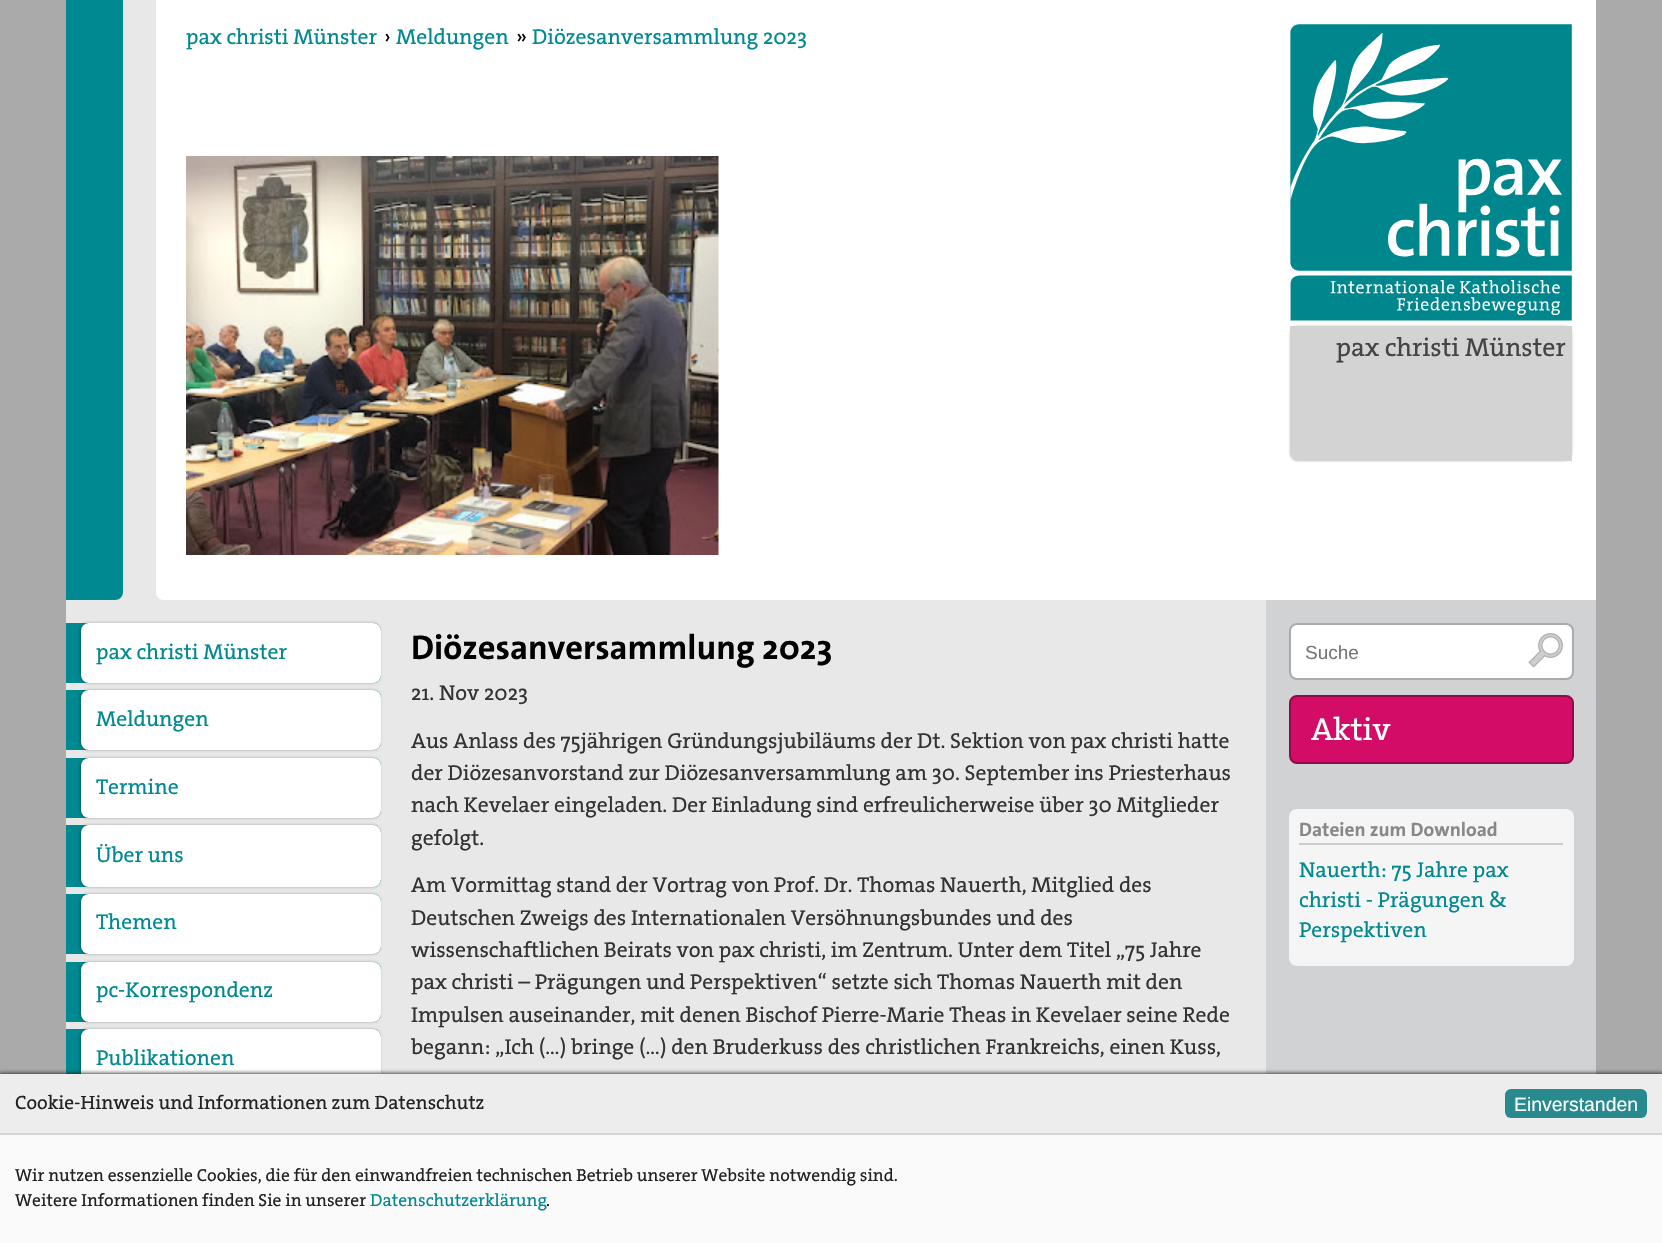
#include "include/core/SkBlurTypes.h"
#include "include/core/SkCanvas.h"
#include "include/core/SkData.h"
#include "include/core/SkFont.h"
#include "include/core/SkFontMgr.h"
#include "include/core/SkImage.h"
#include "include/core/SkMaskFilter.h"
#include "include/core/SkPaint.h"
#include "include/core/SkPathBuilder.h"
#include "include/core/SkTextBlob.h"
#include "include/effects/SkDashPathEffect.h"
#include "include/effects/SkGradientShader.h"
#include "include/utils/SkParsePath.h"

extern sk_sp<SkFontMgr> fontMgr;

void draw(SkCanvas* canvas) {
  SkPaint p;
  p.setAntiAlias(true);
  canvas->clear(SkColorSetRGB(170, 170, 170));
  p.setColor(SkColorSetRGB(232, 232, 232));
  canvas->drawRect(SkRect::MakeLTRB(66, 0, 1266, 1074), p);
  p.setColor(SK_ColorWHITE);
  canvas->drawPath(SkPathBuilder().moveTo(156, 0).lineTo(1596, 0).lineTo(1596, 600).lineTo(164, 600).cubicTo(159.5f, 600, 156, 596.5f, 156, 592).close().detach(), p);
  p.setColor(SkColorSetRGB(0, 137, 144));
  canvas->drawPath(SkPathBuilder().moveTo(66, 0).lineTo(123, 0).lineTo(123, 592).cubicTo(123, 596.5f, 119.5f, 600, 115, 600).lineTo(66, 600).close().detach(), p);
  canvas->drawImageRect(SkImages::DeferredFromEncodedData(SkData::MakeFromFileName("images/1.png")), SkRect::MakeLTRB(186, 156, 719, 555), SkSamplingOptions());
  canvas->drawImageRect(SkImages::DeferredFromEncodedData(SkData::MakeFromFileName("images/2.png")), SkRect::MakeLTRB(1290, 24, 1572, 321), SkSamplingOptions());
  canvas->save();
  canvas->clipPath(SkPathBuilder(SkPathFillType::kEvenOdd).moveTo(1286, 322).lineTo(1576, 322).lineTo(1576, 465).lineTo(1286, 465).close().moveTo(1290, 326).lineTo(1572, 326).lineTo(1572, 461).lineTo(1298, 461).cubicTo(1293.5f, 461, 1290, 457.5f, 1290, 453).close().detach(), true);
  p.setColor(SkColorSetARGB(77, 0, 0, 0));
  p.setMaskFilter(SkMaskFilter::MakeBlur(kNormal_SkBlurStyle, 1));
  canvas->drawRoundRect(SkRect::MakeLTRB(1290, 326, 1572, 461), 8, 8, p);
  p.setMaskFilter(nullptr);
  canvas->restore();
  p.setColor(SkColorSetARGB(204, 200, 200, 200));
  canvas->drawPath(SkPathBuilder().moveTo(1290, 326).lineTo(1572, 326).lineTo(1572, 461).lineTo(1298, 461).cubicTo(1293.5f, 461, 1290, 457.5f, 1290, 453).close().detach(), p);
  p.setColor(SkColorSetRGB(0, 137, 144));
  canvas->drawPath(SkPathBuilder().moveTo(66, 623).lineTo(373, 623).cubicTo(377.5f, 623, 381, 626.5f, 381, 631).lineTo(381, 675).cubicTo(381, 679.5f, 377.5f, 683, 373, 683).lineTo(66, 683).close().detach(), p);
  p.setColor(SkColorSetARGB(77, 0, 0, 0));
  p.setMaskFilter(SkMaskFilter::MakeBlur(kNormal_SkBlurStyle, 1.5f));
  canvas->drawRoundRect(SkRect::MakeLTRB(80, 623, 380, 683), 8, 8, p);
  p.setMaskFilter(nullptr);
  p.setColor(SK_ColorWHITE);
  canvas->drawRoundRect(SkRect::MakeLTRB(81, 623, 381, 683), 8, 8, p);
  p.setColor(SkColorSetRGB(0, 137, 144));
  canvas->drawPath(SkPathBuilder().moveTo(66, 690).lineTo(373, 690).cubicTo(377.5f, 690, 381, 693.5f, 381, 698).lineTo(381, 742).cubicTo(381, 746.5f, 377.5f, 750, 373, 750).lineTo(66, 750).close().detach(), p);
  p.setColor(SkColorSetARGB(77, 0, 0, 0));
  p.setMaskFilter(SkMaskFilter::MakeBlur(kNormal_SkBlurStyle, 1.5f));
  canvas->drawRoundRect(SkRect::MakeLTRB(80, 690, 380, 750), 8, 8, p);
  p.setMaskFilter(nullptr);
  p.setColor(SK_ColorWHITE);
  canvas->drawRoundRect(SkRect::MakeLTRB(81, 690, 381, 750), 8, 8, p);
  p.setColor(SkColorSetRGB(0, 137, 144));
  canvas->drawPath(SkPathBuilder().moveTo(66, 758).lineTo(373, 758).cubicTo(377.5f, 758, 381, 761.5f, 381, 766).lineTo(381, 810).cubicTo(381, 814.5f, 377.5f, 818, 373, 818).lineTo(66, 818).close().detach(), p);
  p.setColor(SkColorSetARGB(77, 0, 0, 0));
  p.setMaskFilter(SkMaskFilter::MakeBlur(kNormal_SkBlurStyle, 1.5f));
  canvas->drawRoundRect(SkRect::MakeLTRB(80, 758, 380, 818), 8, 8, p);
  p.setMaskFilter(nullptr);
  p.setColor(SK_ColorWHITE);
  canvas->drawRoundRect(SkRect::MakeLTRB(81, 758, 381, 818), 8, 8, p);
  p.setColor(SkColorSetRGB(0, 137, 144));
  canvas->drawPath(SkPathBuilder().moveTo(66, 825).lineTo(373, 825).cubicTo(377.5f, 825, 381, 828.5f, 381, 833).lineTo(381, 879).cubicTo(381, 883.5f, 377.5f, 887, 373, 887).lineTo(66, 887).close().detach(), p);
  p.setColor(SkColorSetARGB(77, 0, 0, 0));
  p.setMaskFilter(SkMaskFilter::MakeBlur(kNormal_SkBlurStyle, 1.5f));
  canvas->drawRoundRect(SkRect::MakeLTRB(80, 825, 380, 887), 8, 8, p);
  p.setMaskFilter(nullptr);
  p.setColor(SK_ColorWHITE);
  canvas->drawRoundRect(SkRect::MakeLTRB(81, 825, 381, 887), 8, 8, p);
  p.setColor(SkColorSetRGB(0, 137, 144));
  canvas->drawPath(SkPathBuilder().moveTo(66, 894).lineTo(373, 894).cubicTo(377.5f, 894, 381, 897.5f, 381, 902).lineTo(381, 946).cubicTo(381, 950.5f, 377.5f, 954, 373, 954).lineTo(66, 954).close().detach(), p);
  p.setColor(SkColorSetARGB(77, 0, 0, 0));
  p.setMaskFilter(SkMaskFilter::MakeBlur(kNormal_SkBlurStyle, 1.5f));
  canvas->drawRoundRect(SkRect::MakeLTRB(80, 894, 380, 954), 8, 8, p);
  p.setMaskFilter(nullptr);
  p.setColor(SK_ColorWHITE);
  canvas->drawRoundRect(SkRect::MakeLTRB(81, 894, 381, 954), 8, 8, p);
  p.setColor(SkColorSetRGB(0, 137, 144));
  canvas->drawPath(SkPathBuilder().moveTo(66, 962).lineTo(373, 962).cubicTo(377.5f, 962, 381, 965.5f, 381, 970).lineTo(381, 1014).cubicTo(381, 1018.5f, 377.5f, 1022, 373, 1022).lineTo(66, 1022).close().detach(), p);
  p.setColor(SkColorSetARGB(77, 0, 0, 0));
  p.setMaskFilter(SkMaskFilter::MakeBlur(kNormal_SkBlurStyle, 1.5f));
  canvas->drawRoundRect(SkRect::MakeLTRB(80, 962, 380, 1022), 8, 8, p);
  p.setMaskFilter(nullptr);
  p.setColor(SK_ColorWHITE);
  canvas->drawRoundRect(SkRect::MakeLTRB(81, 962, 381, 1022), 8, 8, p);
  p.setColor(SkColorSetRGB(0, 137, 144));
  canvas->drawPath(SkPathBuilder().moveTo(66, 1029).lineTo(373, 1029).cubicTo(377.5f, 1029, 381, 1032.5f, 381, 1037).lineTo(381, 1081).cubicTo(381, 1085.5f, 377.5f, 1089, 373, 1089).lineTo(66, 1089).close().detach(), p);
  p.setColor(SkColorSetARGB(77, 0, 0, 0));
  p.setMaskFilter(SkMaskFilter::MakeBlur(kNormal_SkBlurStyle, 1.5f));
  canvas->drawRoundRect(SkRect::MakeLTRB(80, 1029, 380, 1089), 8, 8, p);
  p.setMaskFilter(nullptr);
  p.setColor(SK_ColorWHITE);
  canvas->drawRoundRect(SkRect::MakeLTRB(81, 1029, 381, 1089), 8, 8, p);
  p.setColor(SkColorSetRGB(209, 210, 211));
  canvas->drawRect(SkRect::MakeLTRB(1266, 600, 1596, 1074), p);
  p.setColor(SK_ColorWHITE);
  canvas->drawRoundRect(SkRect::MakeLTRB(1290, 624, 1573, 679), 7, 7, p);
  p.setStyle(SkPaint::kStroke_Style);
  p.setStrokeWidth(2);
  p.setColor(SkColorSetRGB(170, 170, 170));
  canvas->drawRoundRect(SkRect::MakeLTRB(1290, 624, 1573, 679), 7, 7, p);
  canvas->drawImageRect(SkImages::DeferredFromEncodedData(SkData::MakeFromFileName("images/3.png")), SkRect::MakeLTRB(1528, 633, 1563, 668), SkSamplingOptions());
  p.setStyle(SkPaint::kFill_Style);
  p.setColor(SkColorSetRGB(211, 12, 103));
  canvas->drawRoundRect(SkRect::MakeLTRB(1290, 696, 1573, 763), 7, 7, p);
  p.setStyle(SkPaint::kStroke_Style);
  p.setColor(SkColorSetRGB(142, 11, 71));
  canvas->drawRoundRect(SkRect::MakeLTRB(1290, 696, 1573, 763), 7, 7, p);
  p.setStyle(SkPaint::kFill_Style);
  p.setColor(SkColorSetRGB(245, 245, 245));
  canvas->drawRoundRect(SkRect::MakeLTRB(1289, 809, 1574, 966), 8, 8, p);
  p.setColor(SkColorSetRGB(204, 204, 204));
  canvas->drawRect(SkRect::MakeLTRB(1299, 843, 1563, 845), p);
  p.setColor(SkColorSetARGB(204, 25, 25, 25));
  p.setMaskFilter(SkMaskFilter::MakeBlur(kNormal_SkBlurStyle, 2));
  canvas->drawRect(SkRect::MakeLTRB(-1, 1073, 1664, 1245), p);
  p.setMaskFilter(nullptr);
  p.setColor(SkColorSetRGB(250, 250, 250));
  canvas->drawRect(SkRect::MakeLTRB(0, 1135, 1662, 1243), p);
  p.setColor(SkColorSetRGB(237, 237, 237));
  canvas->drawRect(SkRect::MakeLTRB(0, 1074, 1662, 1133), p);
  p.setColor(SkColorSetRGB(212, 212, 212));
  canvas->drawRect(SkRect::MakeLTRB(0, 1133, 1662, 1135), p);
  p.setColor(SkColorSetRGB(40, 137, 143));
  canvas->drawRoundRect(SkRect::MakeLTRB(1505, 1089, 1647, 1118), 6, 6, p);
  SkFont font1(fontMgr->matchFamilyStyle("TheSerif", SkFontStyle(500, SkFontStyle::kNormal_Width, SkFontStyle::kUpright_Slant)), 21.6f);
  font1.setSubpixel(true);
  p.setColor(SkColorSetRGB(0, 137, 144));
  canvas->drawString("pax christi Münster", 186, 44, font1, p);
  p.setColor(SK_ColorBLACK);
  canvas->drawString("›", 384, 44, font1, p);
  p.setColor(SkColorSetRGB(0, 137, 144));
  canvas->drawString("Meldungen", 396, 44, font1, p);
  p.setColor(SK_ColorBLACK);
  canvas->drawString("»", 516, 44, font1, p);
  p.setColor(SkColorSetRGB(0, 137, 144));
  canvas->drawString("Diözesanversammlung 2023", 532, 44, font1, p);
  SkFont font2(fontMgr->matchFamilyStyle("TheSerif", SkFontStyle(500, SkFontStyle::kNormal_Width, SkFontStyle::kUpright_Slant)), 26);
  font2.setSubpixel(true);
  p.setColor(SkColorSetRGB(68, 68, 68));
  canvas->drawString("pax christi Münster", 1336, 356, font2, p);
  p.setColor(SkColorSetRGB(0, 137, 144));
  canvas->drawString("pax christi Münster", 96, 659, font1, p);
  canvas->drawString("Meldungen", 96, 726, font1, p);
  canvas->drawString("Termine", 96, 794, font1, p);
  canvas->drawString("Über uns", 96, 862, font1, p);
  canvas->drawString("Themen", 96, 929, font1, p);
  canvas->drawString("pc-Korrespondenz", 96, 997, font1, p);
  canvas->drawString("Publikationen", 96, 1065, font1, p);
  SkFont font3(fontMgr->matchFamilyStyle("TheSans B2", SkFontStyle::Bold()), 34.5f);
  font3.setSubpixel(true);
  p.setColor(SK_ColorBLACK);
  canvas->drawString("Diözesanversammlung 2023", 411, 659, font3, p);
  p.setColor(SkColorSetRGB(51, 51, 51));
  canvas->drawString("21. Nov 2023", 411, 700, font1, p);
  canvas->drawString("Aus Anlass des 75jährigen Gründungsjubiläums der Dt. Sektion von pax christi hatte", 411, 748, font1, p);
  canvas->drawString("der Diözesanvorstand zur Diözesanversammlung am 30. September ins Priesterhaus", 411, 780, font1, p);
  canvas->drawString("nach Kevelaer eingeladen. Der Einladung sind erfreulicherweise über 30 Mitglieder", 411, 812, font1, p);
  canvas->drawString("gefolgt.", 411, 845, font1, p);
  canvas->drawString("Am Vormittag stand der Vortrag von Prof. Dr. Thomas Nauerth, Mitglied des", 411, 892, font1, p);
  canvas->drawString("Deutschen Zweigs des Internationalen Versöhnungsbundes und des", 411, 925, font1, p);
  canvas->drawString("wissenschaftlichen Beirats von pax christi, im Zentrum. Unter dem Titel „75 Jahre", 411, 957, font1, p);
  canvas->drawString("pax christi – Prägungen und Perspektiven“ setzte sich Thomas Nauerth mit den", 411, 989, font1, p);
  canvas->drawString("Impulsen auseinander, mit denen Bischof Pierre-Marie Theas in Kevelaer seine Rede", 411, 1022, font1, p);
  canvas->drawString("begann: „Ich (…) bringe (…) den Bruderkuss des christlichen Frankreichs, einen Kuss,", 411, 1054, font1, p);
  SkFont font4(fontMgr->matchFamilyStyle("Liberation Sans", SkFontStyle::Normal()), 19);
  font4.setSubpixel(true);
  p.setColor(SkColorSetRGB(117, 117, 117));
  canvas->drawString("Suche", 1305, 659, font4, p);
  SkFont font5(fontMgr->matchFamilyStyle("TheSerif", SkFontStyle(500, SkFontStyle::kNormal_Width, SkFontStyle::kUpright_Slant)), 32);
  font5.setSubpixel(true);
  p.setColor(SK_ColorWHITE);
  canvas->drawString("Aktiv", 1311, 740, font5, p);
  SkFont font6(fontMgr->matchFamilyStyle("TheSans B2", SkFontStyle::Bold()), 19.4f);
  font6.setSubpixel(true);
  p.setColor(SkColorSetRGB(136, 136, 136));
  canvas->drawString("Dateien zum Download", 1299, 836, font6, p);
  p.setColor(SkColorSetRGB(0, 137, 144));
  canvas->drawString("Nauerth: 75 Jahre pax", 1299, 877, font1, p);
  canvas->drawString("christi - Prägungen &", 1299, 907, font1, p);
  canvas->drawString("Perspektiven", 1299, 937, font1, p);
  SkFont font7(fontMgr->matchFamilyStyle("TheSerif", SkFontStyle(500, SkFontStyle::kNormal_Width, SkFontStyle::kUpright_Slant)), 19.4f);
  font7.setSubpixel(true);
  p.setColor(SkColorSetRGB(34, 34, 34));
  canvas->drawString("Cookie-Hinweis und Informationen zum Datenschutz", 15, 1109, font7, p);
  SkFont font8(fontMgr->matchFamilyStyle("Liberation Sans", SkFontStyle::Normal()), 19.4f);
  font8.setSubpixel(true);
  p.setColor(SK_ColorWHITE);
  canvas->drawString("Einverstanden", 1514, 1111, font8, p);
  SkFont font9(fontMgr->matchFamilyStyle("TheSerif", SkFontStyle(500, SkFontStyle::kNormal_Width, SkFontStyle::kUpright_Slant)), 17.5f);
  font9.setSubpixel(true);
  p.setColor(SkColorSetRGB(34, 34, 34));
  canvas->drawString("Wir nutzen essenzielle Cookies, die für den einwandfreien technischen Betrieb unserer Website notwendig sind.", 15, 1181, font9, p);
  canvas->drawString("Weitere Informationen finden Sie in unserer", 15, 1206, font9, p);
  p.setColor(SkColorSetRGB(0, 137, 144));
  canvas->drawString("Datenschutzerklärung", 370, 1206, font9, p);
  p.setColor(SkColorSetRGB(34, 34, 34));
  canvas->drawString(".", 546, 1206, font9, p);
}
